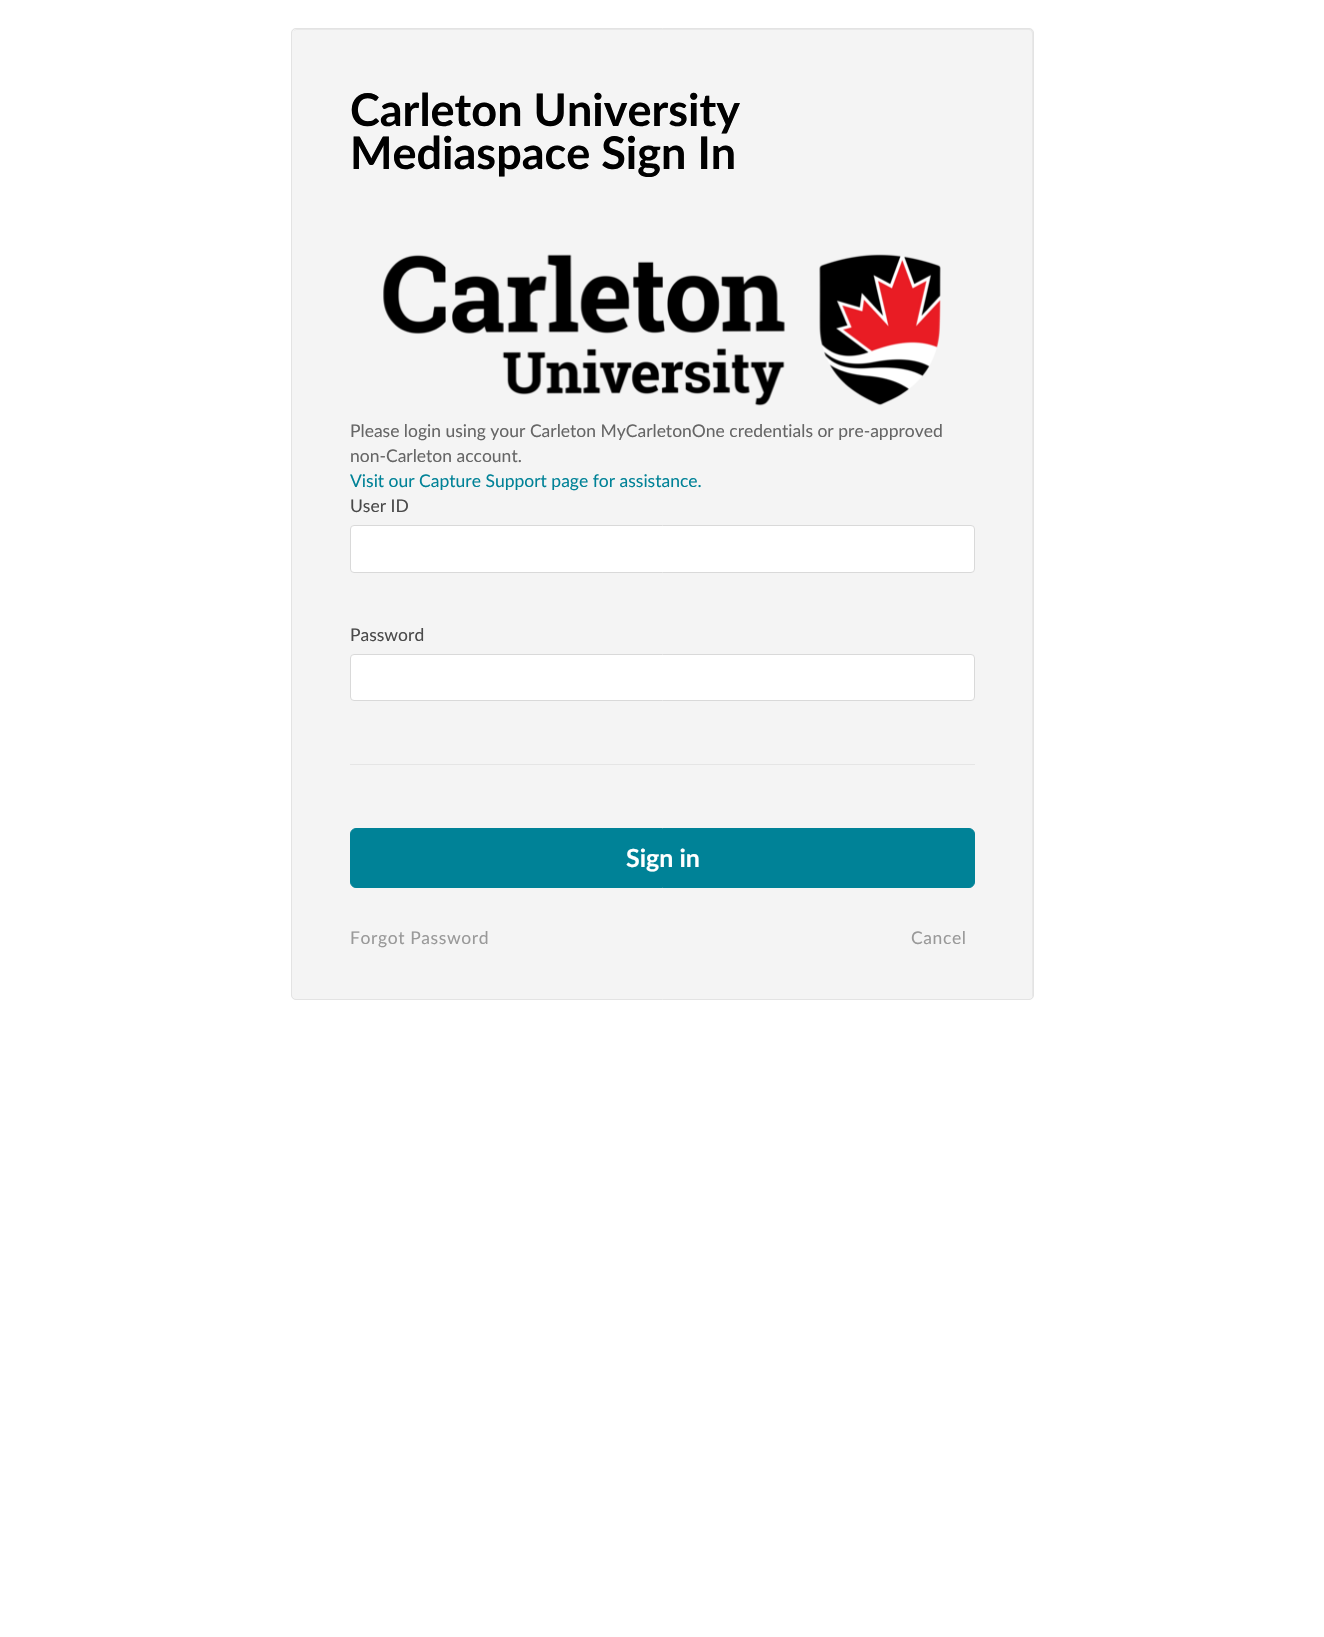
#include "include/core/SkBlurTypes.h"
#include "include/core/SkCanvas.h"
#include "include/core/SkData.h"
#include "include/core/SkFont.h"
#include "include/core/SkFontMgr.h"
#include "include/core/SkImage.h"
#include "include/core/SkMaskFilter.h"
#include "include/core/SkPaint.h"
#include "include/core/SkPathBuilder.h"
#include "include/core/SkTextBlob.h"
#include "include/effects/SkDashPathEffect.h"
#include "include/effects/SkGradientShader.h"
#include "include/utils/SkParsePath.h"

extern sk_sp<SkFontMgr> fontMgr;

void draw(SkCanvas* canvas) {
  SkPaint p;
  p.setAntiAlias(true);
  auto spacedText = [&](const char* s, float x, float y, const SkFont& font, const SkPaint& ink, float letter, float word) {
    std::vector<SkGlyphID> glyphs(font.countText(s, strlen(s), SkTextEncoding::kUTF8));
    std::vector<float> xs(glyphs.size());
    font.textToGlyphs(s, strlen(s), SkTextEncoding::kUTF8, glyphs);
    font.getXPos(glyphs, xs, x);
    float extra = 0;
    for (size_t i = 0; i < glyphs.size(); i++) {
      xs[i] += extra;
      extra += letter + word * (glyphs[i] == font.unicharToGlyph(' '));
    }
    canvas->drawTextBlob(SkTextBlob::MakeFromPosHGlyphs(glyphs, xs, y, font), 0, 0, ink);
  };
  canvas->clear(SK_ColorWHITE);
  p.setColor(SkColorSetRGB(244, 244, 244));
  canvas->drawRoundRect(SkRect::MakeLTRB(291, 28, 1034, 1000), 5, 5, p);
  p.setColor(SkColorSetRGB(232, 232, 232));
  canvas->drawPath(SkPathBuilder().moveTo(296, 30).lineTo(1029, 30).cubicTo(1031, 30, 1032, 32, 1032, 34).lineTo(1032, 996).lineTo(1032, 998).cubicTo(1032, 997, 1033, 996, 1033, 995).lineTo(1033, 33).cubicTo(1033, 31, 1031, 29, 1029, 29).lineTo(297, 29).cubicTo(296, 29, 294, 30, 294, 31).close().detach(), p);
  p.setStyle(SkPaint::kStroke_Style);
  p.setStrokeWidth(1);
  p.setColor(SkColorSetRGB(227, 227, 227));
  canvas->drawRoundRect(SkRect::MakeLTRB(291.5f, 28.5f, 1033.5f, 999.5f), 4.5f, 4.5f, p);
  canvas->drawImageRect(SkImages::DeferredFromEncodedData(SkData::MakeFromFileName("images/1.png")), SkRect::MakeLTRB(383, 254, 941, 406), SkSamplingOptions());
  p.setStyle(SkPaint::kFill_Style);
  p.setColor(SK_ColorWHITE);
  canvas->drawRoundRect(SkRect::MakeLTRB(350.5f, 525.5f, 974.5f, 572.5f), 3.5f, 3.5f, p);
  p.setStyle(SkPaint::kStroke_Style);
  p.setColor(SkColorSetRGB(217, 217, 217));
  canvas->drawRoundRect(SkRect::MakeLTRB(350.5f, 525.5f, 974.5f, 572.5f), 3.5f, 3.5f, p);
  p.setStyle(SkPaint::kFill_Style);
  p.setColor(SK_ColorWHITE);
  canvas->drawRoundRect(SkRect::MakeLTRB(350.5f, 654.5f, 974.5f, 700.5f), 3.5f, 3.5f, p);
  p.setStyle(SkPaint::kStroke_Style);
  p.setColor(SkColorSetRGB(217, 217, 217));
  canvas->drawRoundRect(SkRect::MakeLTRB(350.5f, 654.5f, 974.5f, 700.5f), 3.5f, 3.5f, p);
  p.setStyle(SkPaint::kFill_Style);
  p.setColor(SkColorSetRGB(229, 229, 229));
  canvas->drawRect(SkRect::MakeLTRB(350, 764, 975, 765), p);
  p.setColor(SkColorSetRGB(0, 130, 151));
  canvas->drawRoundRect(SkRect::MakeLTRB(350.5f, 828.5f, 974.5f, 887.5f), 5.5f, 5.5f, p);
  p.setStyle(SkPaint::kStroke_Style);
  canvas->drawRoundRect(SkRect::MakeLTRB(350.5f, 828.5f, 974.5f, 887.5f), 5.5f, 5.5f, p);
  SkFont font1(fontMgr->matchFamilyStyle("Lato", SkFontStyle::Bold()), 45);
  font1.setSubpixel(true);
  p.setStyle(SkPaint::kFill_Style);
  p.setColor(SK_ColorBLACK);
  canvas->drawString("Carleton University", 350, 126, font1, p);
  canvas->drawString("Mediaspace Sign In", 350, 169, font1, p);
  SkFont font2(fontMgr->matchFamilyStyle("Lato", SkFontStyle::Normal()), 17.5f);
  font2.setSubpixel(true);
  p.setColor(SkColorSetRGB(102, 102, 102));
  canvas->drawString("Please login using your Carleton MyCarletonOne credentials or pre-approved", 350, 437, font2, p);
  canvas->drawString("non-Carleton account.", 350, 462, font2, p);
  p.setColor(SkColorSetRGB(0, 130, 151));
  canvas->drawString("Visit our Capture Support page for assistance.", 350, 487, font2, p);
  p.setColor(SkColorSetRGB(74, 74, 74));
  canvas->drawString("User ID", 350, 512, font2, p);
  canvas->drawString("Password", 350, 641, font2, p);
  SkFont font3(fontMgr->matchFamilyStyle("Lato", SkFontStyle::Bold()), 25);
  font3.setSubpixel(true);
  p.setColor(SK_ColorWHITE);
  canvas->drawString("Sign in", 626, 867, font3, p);
  p.setColor(SkColorSetRGB(153, 153, 153));
  spacedText("Forgot Password", 350, 944, font2, p, 0.6f, 0);
  spacedText("Cancel", 911, 944, font2, p, 0.6f, 0);
}
